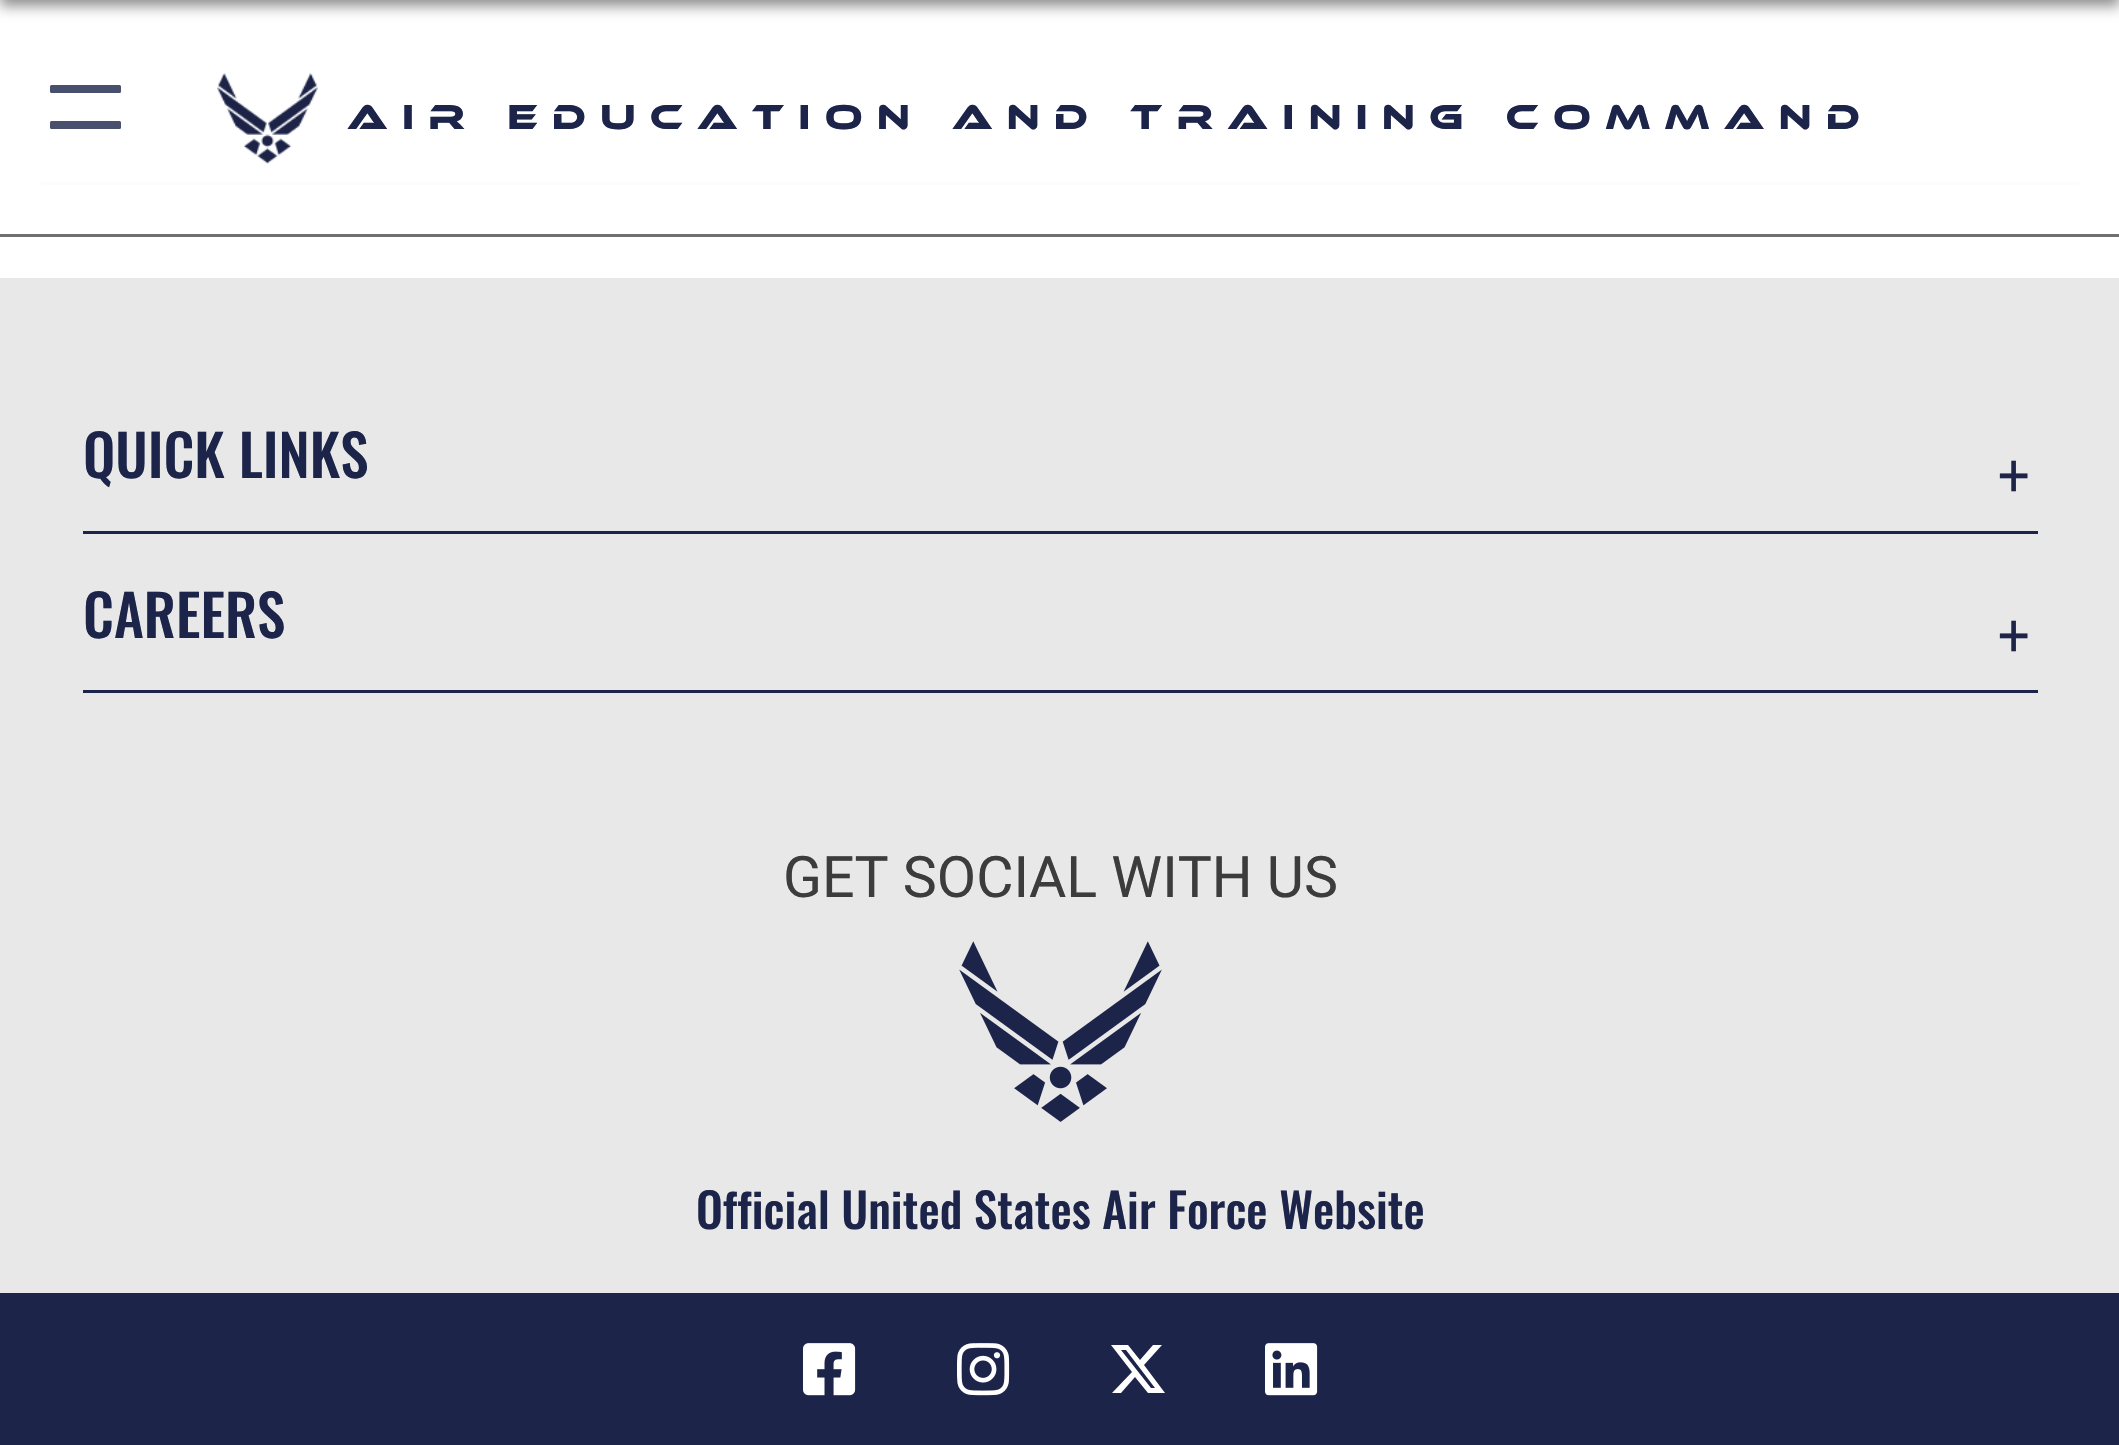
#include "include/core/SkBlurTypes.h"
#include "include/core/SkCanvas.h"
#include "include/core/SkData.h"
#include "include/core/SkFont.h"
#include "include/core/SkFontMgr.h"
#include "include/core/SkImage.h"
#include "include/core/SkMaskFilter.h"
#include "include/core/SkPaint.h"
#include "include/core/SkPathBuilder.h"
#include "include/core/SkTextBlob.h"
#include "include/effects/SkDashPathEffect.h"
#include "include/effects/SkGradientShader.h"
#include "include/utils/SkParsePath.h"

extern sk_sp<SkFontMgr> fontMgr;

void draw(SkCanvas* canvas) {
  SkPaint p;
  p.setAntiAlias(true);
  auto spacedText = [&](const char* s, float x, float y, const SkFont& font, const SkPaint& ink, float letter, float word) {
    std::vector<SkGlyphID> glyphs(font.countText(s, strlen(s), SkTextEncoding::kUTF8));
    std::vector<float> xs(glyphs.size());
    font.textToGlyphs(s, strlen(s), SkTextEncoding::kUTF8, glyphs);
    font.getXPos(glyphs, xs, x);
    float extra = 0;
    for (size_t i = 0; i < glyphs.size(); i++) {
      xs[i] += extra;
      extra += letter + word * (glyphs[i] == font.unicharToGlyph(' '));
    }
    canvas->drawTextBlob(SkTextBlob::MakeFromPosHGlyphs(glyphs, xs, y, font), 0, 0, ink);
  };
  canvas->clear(SK_ColorWHITE);
  p.setColor(SkColorSetARGB(115, 0, 0, 0));
  p.setMaskFilter(SkMaskFilter::MakeBlur(kNormal_SkBlurStyle, 7));
  canvas->drawRect(SkRect::MakeLTRB(0, -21, 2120, 6), p);
  p.setMaskFilter(nullptr);
  p.setColor(SkColorSetRGB(112, 112, 112));
  canvas->drawRect(SkRect::MakeLTRB(0, 234, 2119, 237), p);
  p.setColor(SkColorSetARGB(204, 28, 36, 73));
  canvas->drawRoundRect(SkRect::MakeLTRB(50, 85, 121, 93), 1.5f, 1.5f, p);
  p.setColor(SkColorSetRGB(73, 80, 109));
  canvas->drawRoundRect(SkRect::MakeLTRB(50, 121, 121, 129), 1.5f, 1.5f, p);
  canvas->drawImageRect(SkImages::DeferredFromEncodedData(SkData::MakeFromFileName("images/1.png")), SkRect::MakeLTRB(217, 72, 318, 164), SkSamplingOptions());
  p.setColor(SkColorSetRGB(252, 252, 252));
  canvas->drawRect(SkRect::MakeLTRB(41, 182, 2079, 185), p);
  p.setColor(SkColorSetRGB(232, 232, 232));
  canvas->drawRect(SkRect::MakeLTRB(0, 278, 2119, 1293), p);
  p.setColor(SkColorSetRGB(28, 36, 73));
  canvas->drawRect(SkRect::MakeLTRB(83, 531, 2038, 534), p);
  canvas->drawRect(SkRect::MakeLTRB(83, 690, 2038, 693), p);
  canvas->drawImageRect(SkImages::DeferredFromEncodedData(SkData::MakeFromFileName("images/2.png")), SkRect::MakeLTRB(959, 941, 1162, 1122), SkSamplingOptions());
  canvas->drawRect(SkRect::MakeLTRB(0, 1293, 2119, 1445), p);
  canvas->drawImageRect(SkImages::DeferredFromEncodedData(SkData::MakeFromFileName("images/3.png")), SkRect::MakeLTRB(803, 1343, 856, 1396), SkSamplingOptions());
  canvas->drawImageRect(SkImages::DeferredFromEncodedData(SkData::MakeFromFileName("images/4.png")), SkRect::MakeLTRB(957, 1343, 1010, 1396), SkSamplingOptions());
  p.setColor(SK_ColorWHITE);
  canvas->drawPath(SkPathBuilder().moveTo(1153, 1345).lineTo(1162, 1345).lineTo(1144, 1365).lineTo(1165, 1393).lineTo(1148, 1393).lineTo(1135, 1377).lineTo(1121, 1393).lineTo(1112, 1393).lineTo(1132, 1372).lineTo(1111, 1345).lineTo(1128, 1345).lineTo(1140, 1360).close().moveTo(1151, 1388).lineTo(1155, 1388).lineTo(1126, 1350).lineTo(1121, 1350).close().detach(), p);
  canvas->drawImageRect(SkImages::DeferredFromEncodedData(SkData::MakeFromFileName("images/5.png")), SkRect::MakeLTRB(1265, 1343, 1318, 1396), SkSamplingOptions());
  SkFont font1(fontMgr->matchFamilyStyle("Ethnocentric", SkFontStyle::Normal()), 35.75f);
  font1.setSubpixel(true);
  p.setColor(SkColorSetRGB(28, 36, 73));
  spacedText("Air Education and Training Command", 347, 129, font1, p, 14.3f, 0);
  SkFont font2(fontMgr->matchFamilyStyle("Oswald", SkFontStyle(500, SkFontStyle::kNormal_Width, SkFontStyle::kUpright_Slant)), 57.25f);
  font2.setSubpixel(true);
  canvas->drawString("QUICK LINKS", 83, 478, font2, p);
  SkFont font3(fontMgr->matchFamilyStyle("Oswald", SkFontStyle(300, SkFontStyle::kNormal_Width, SkFontStyle::kUpright_Slant)), 82);
  font3.setSubpixel(true);
  canvas->drawString("+", 1998, 510, font3, p);
  canvas->drawString("CAREERS", 83, 638, font2, p);
  canvas->drawString("+", 1998, 670, font3, p);
  SkFont font4(fontMgr->matchFamilyStyle("Roboto", SkFontStyle::Normal()), 57.25f);
  font4.setSubpixel(true);
  p.setColor(SkColorSetRGB(61, 60, 60));
  canvas->drawString("GET SOCIAL WITH US", 783, 897, font4, p);
  SkFont font5(fontMgr->matchFamilyStyle("Oswald", SkFontStyle(500, SkFontStyle::kNormal_Width, SkFontStyle::kUpright_Slant)), 47.6f);
  font5.setSubpixel(true);
  p.setColor(SkColorSetRGB(28, 36, 73));
  canvas->drawString("Official United States Air Force Website", 696, 1229, font5, p);
}
